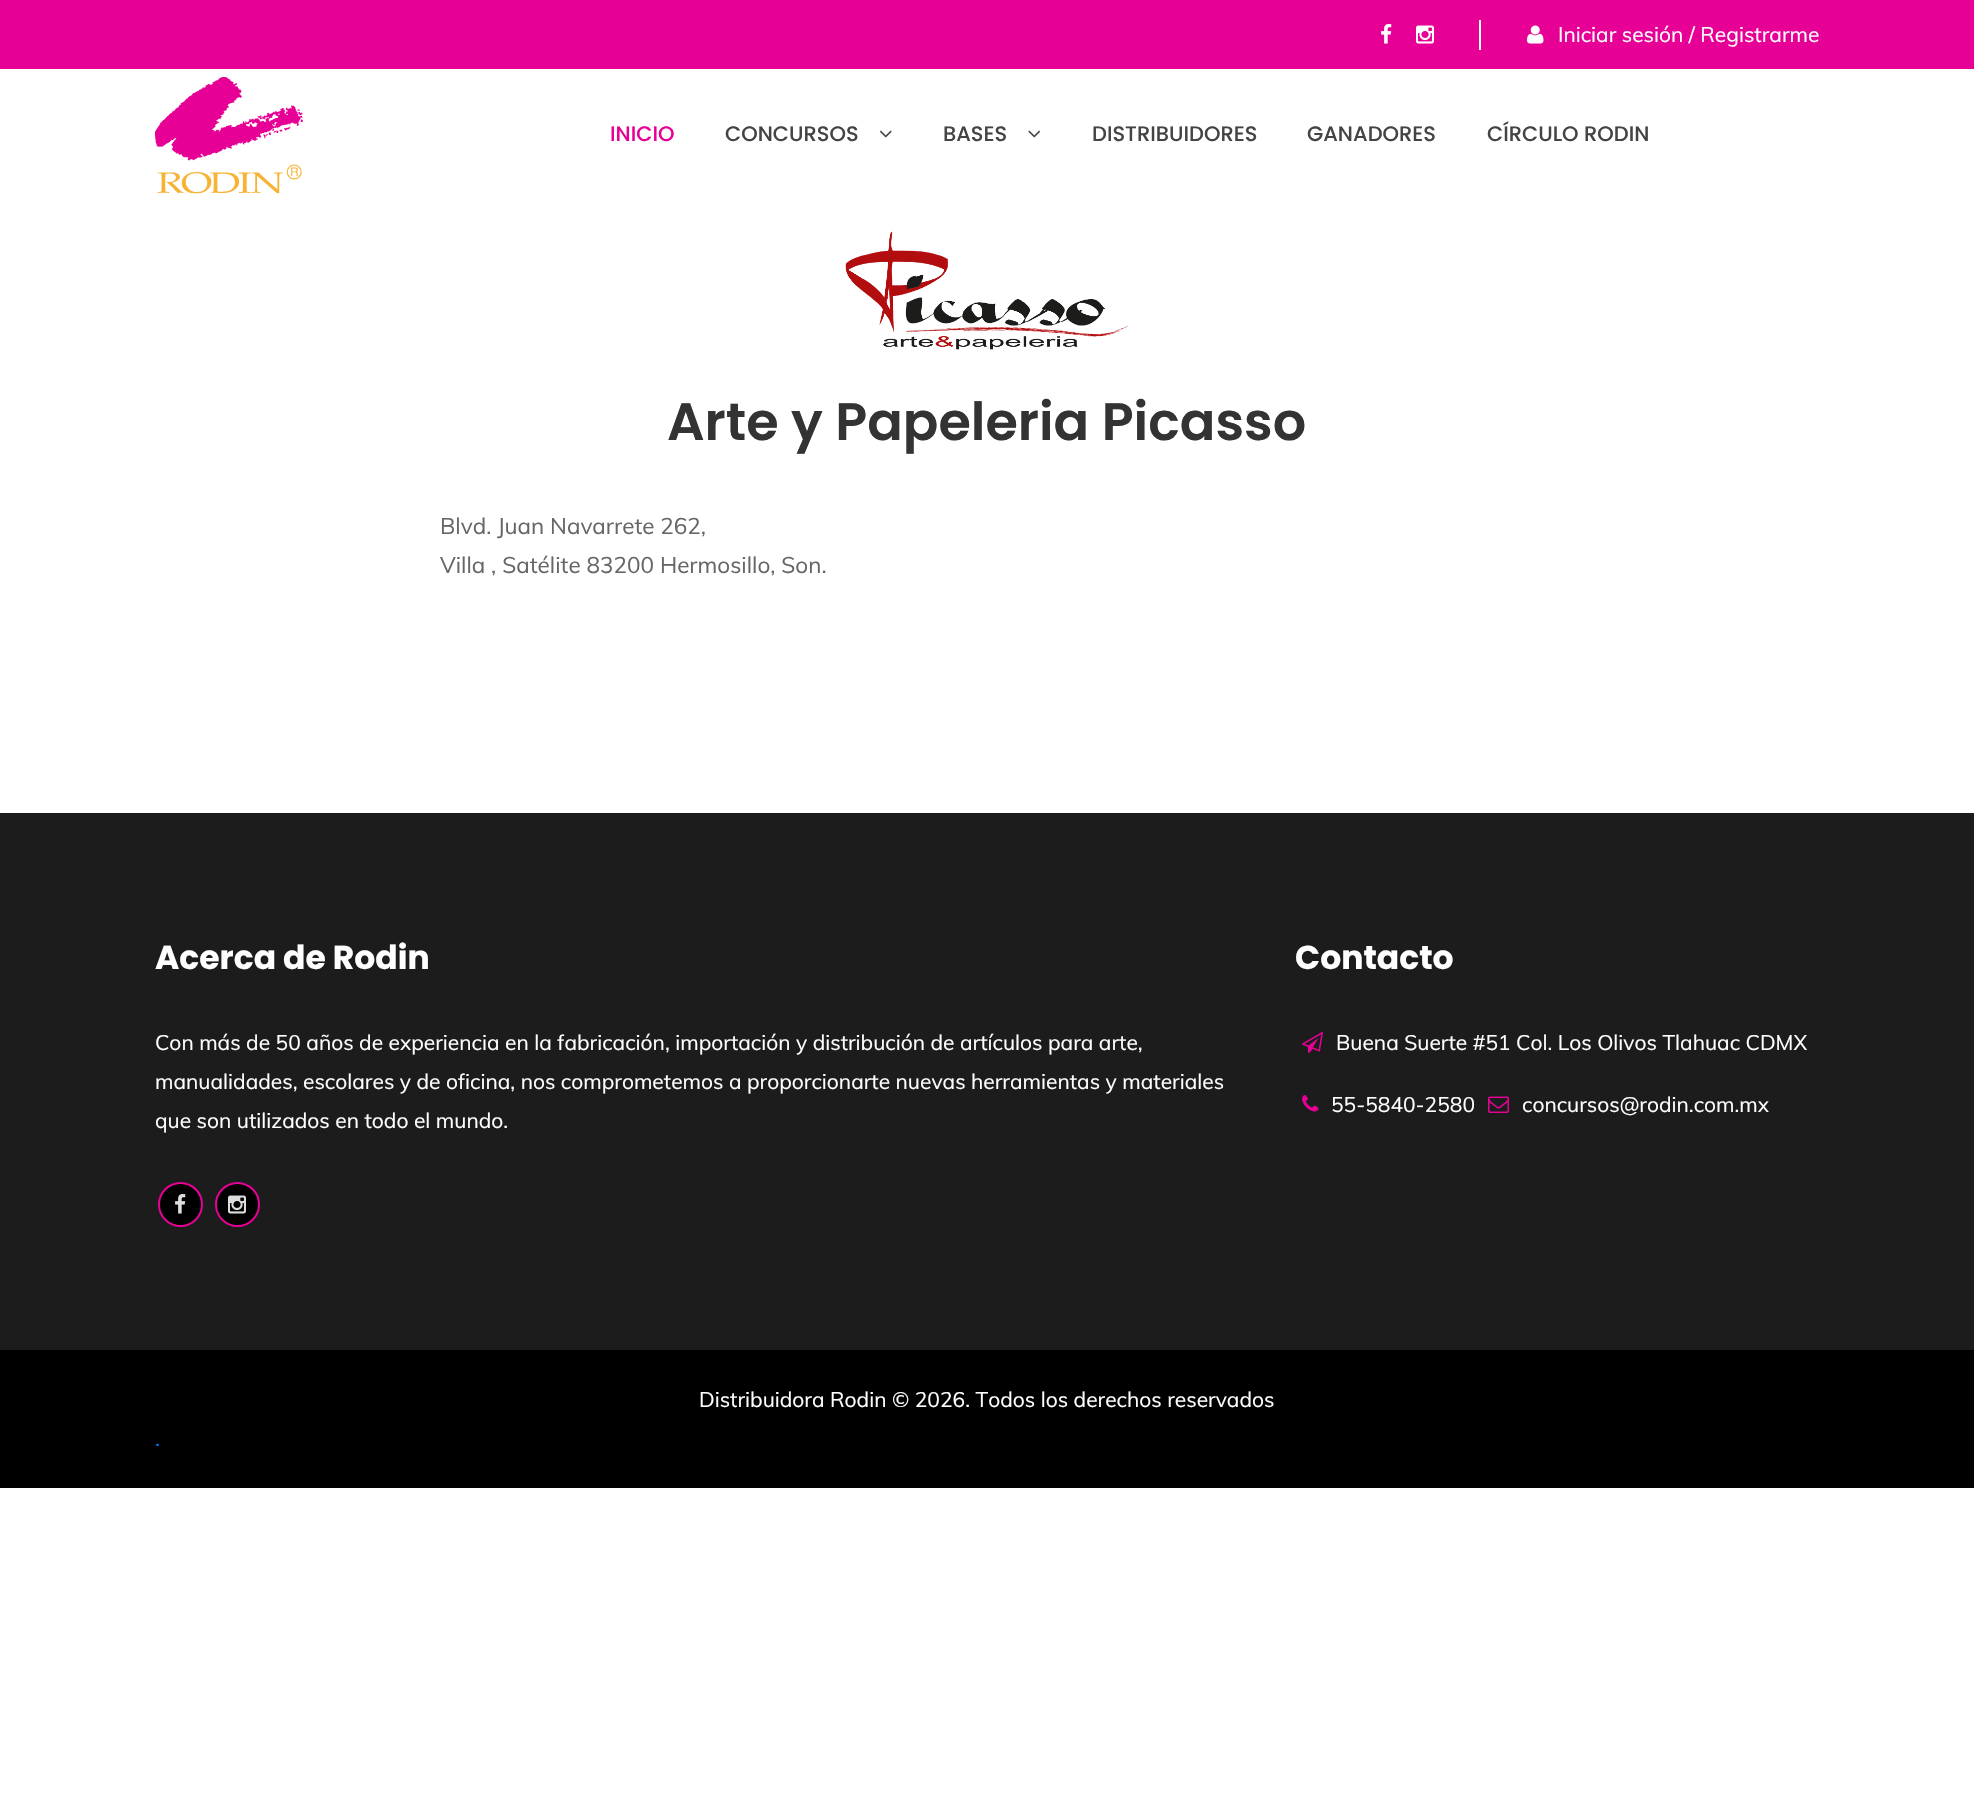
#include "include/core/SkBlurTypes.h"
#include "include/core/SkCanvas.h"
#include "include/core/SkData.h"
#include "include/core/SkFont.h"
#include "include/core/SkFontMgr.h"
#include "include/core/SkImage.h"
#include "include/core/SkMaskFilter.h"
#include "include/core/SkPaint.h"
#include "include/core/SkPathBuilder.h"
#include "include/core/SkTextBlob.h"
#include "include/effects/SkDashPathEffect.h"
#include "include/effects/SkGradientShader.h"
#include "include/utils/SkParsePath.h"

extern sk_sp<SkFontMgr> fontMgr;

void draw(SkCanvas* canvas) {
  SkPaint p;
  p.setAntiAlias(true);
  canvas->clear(SK_ColorWHITE);
  p.setColor(SkColorSetRGB(231, 0, 149));
  canvas->drawRect(SkRect::MakeLTRB(0, 0, 1974, 69), p);
  canvas->drawImageRect(SkImages::DeferredFromEncodedData(SkData::MakeFromFileName("images/1.png")), SkRect::MakeLTRB(1381, 24, 1392, 44), SkSamplingOptions());
  p.setColor(SK_ColorWHITE);
  canvas->drawRect(SkRect::MakeLTRB(1479, 20, 1481, 50), p);
  canvas->drawImageRect(SkImages::DeferredFromEncodedData(SkData::MakeFromFileName("images/2.png")), SkRect::MakeLTRB(1416, 25, 1434, 44), SkSamplingOptions());
  canvas->drawImageRect(SkImages::DeferredFromEncodedData(SkData::MakeFromFileName("images/3.png")), SkRect::MakeLTRB(1527, 25, 1544, 44), SkSamplingOptions());
  canvas->drawImageRect(SkImages::DeferredFromEncodedData(SkData::MakeFromFileName("images/4.png")), SkRect::MakeLTRB(155, 77, 303, 194), SkSamplingOptions());
  canvas->drawImageRect(SkImages::DeferredFromEncodedData(SkData::MakeFromFileName("images/5.png")), SkRect::MakeLTRB(879, 130, 892, 138), SkSamplingOptions());
  canvas->drawImageRect(SkImages::DeferredFromEncodedData(SkData::MakeFromFileName("images/6.png")), SkRect::MakeLTRB(1028, 130, 1041, 138), SkSamplingOptions());
  canvas->drawImageRect(SkImages::DeferredFromEncodedData(SkData::MakeFromFileName("images/7.png")), SkRect::MakeLTRB(845, 231, 1128, 350), SkSamplingOptions());
  p.setColor(SkColorSetRGB(28, 28, 28));
  canvas->drawRect(SkRect::MakeLTRB(0, 813, 1974, 1350), p);
  p.setColor(SK_ColorBLACK);
  canvas->drawCircle(180.5f, 1204.5f, 21.5f, p);
  p.setStyle(SkPaint::kStroke_Style);
  p.setStrokeWidth(2);
  p.setColor(SkColorSetRGB(231, 0, 149));
  canvas->drawCircle(180.5f, 1204.5f, 21.5f, p);
  canvas->drawImageRect(SkImages::DeferredFromEncodedData(SkData::MakeFromFileName("images/8.png")), SkRect::MakeLTRB(175, 1194, 186, 1214), SkSamplingOptions());
  p.setStyle(SkPaint::kFill_Style);
  p.setColor(SK_ColorBLACK);
  canvas->drawCircle(237.5f, 1204.5f, 21.5f, p);
  p.setStyle(SkPaint::kStroke_Style);
  p.setColor(SkColorSetRGB(231, 0, 149));
  canvas->drawCircle(237.5f, 1204.5f, 21.5f, p);
  canvas->drawImageRect(SkImages::DeferredFromEncodedData(SkData::MakeFromFileName("images/9.png")), SkRect::MakeLTRB(228, 1195, 246, 1214), SkSamplingOptions());
  canvas->drawImageRect(SkImages::DeferredFromEncodedData(SkData::MakeFromFileName("images/10.png")), SkRect::MakeLTRB(1302, 1032, 1323, 1053), SkSamplingOptions());
  canvas->drawImageRect(SkImages::DeferredFromEncodedData(SkData::MakeFromFileName("images/11.png")), SkRect::MakeLTRB(1302, 1095, 1319, 1112), SkSamplingOptions());
  canvas->drawImageRect(SkImages::DeferredFromEncodedData(SkData::MakeFromFileName("images/12.png")), SkRect::MakeLTRB(1488, 1096, 1509, 1113), SkSamplingOptions());
  p.setStyle(SkPaint::kFill_Style);
  p.setColor(SK_ColorBLACK);
  canvas->drawRect(SkRect::MakeLTRB(0, 1350, 1974, 1488), p);
  SkFont font1(fontMgr->matchFamilyStyle("Muli", SkFontStyle::Normal()), 21);
  font1.setSubpixel(true);
  p.setColor(SK_ColorWHITE);
  canvas->drawString("Iniciar sesión / Registrarme", 1558, 42, font1, p);
  SkFont font2(fontMgr->matchFamilyStyle("Poppins", SkFontStyle(500, SkFontStyle::kNormal_Width, SkFontStyle::kUpright_Slant)), 21);
  font2.setSubpixel(true);
  p.setColor(SkColorSetRGB(231, 0, 149));
  canvas->drawString("INICIO", 610, 141, font2, p);
  p.setColor(SkColorSetRGB(68, 68, 68));
  canvas->drawString("CONCURSOS", 725, 141, font2, p);
  canvas->drawString("BASES", 943, 141, font2, p);
  canvas->drawString("DISTRIBUIDORES", 1092, 141, font2, p);
  canvas->drawString("GANADORES", 1307, 141, font2, p);
  canvas->drawString("CÍRCULO RODIN", 1487, 141, font2, p);
  SkFont font3(fontMgr->matchFamilyStyle("Poppins", SkFontStyle(600, SkFontStyle::kNormal_Width, SkFontStyle::kUpright_Slant)), 52.5f);
  font3.setSubpixel(true);
  p.setColor(SkColorSetRGB(51, 51, 51));
  canvas->drawString("Arte y Papeleria Picasso", 667, 440, font3, p);
  SkFont font4(fontMgr->matchFamilyStyle("Muli", SkFontStyle::Normal()), 22.5f);
  font4.setSubpixel(true);
  p.setColor(SkColorSetRGB(102, 102, 102));
  canvas->drawString("Blvd. Juan Navarrete 262,", 440, 534, font4, p);
  canvas->drawString("Villa , Satélite 83200 Hermosillo, Son.", 440, 573, font4, p);
  SkFont font5(fontMgr->matchFamilyStyle("Poppins", SkFontStyle::Bold()), 33);
  font5.setSubpixel(true);
  p.setColor(SK_ColorWHITE);
  canvas->drawString("Acerca de Rodin", 155, 969, font5, p);
  canvas->drawString("Con más de 50 años de experiencia en la fabricación, importación y distribución de artículos para arte,", 155, 1050, font1, p);
  canvas->drawString("manualidades, escolares y de oficina, nos comprometemos a proporcionarte nuevas herramientas y materiales", 155, 1089, font1, p);
  canvas->drawString("que son utilizados en todo el mundo.", 155, 1128, font1, p);
  canvas->drawString("Contacto", 1295, 969, font5, p);
  canvas->drawString("Buena Suerte #51 Col. Los Olivos Tlahuac CDMX", 1336, 1050, font1, p);
  canvas->drawString("55-5840-2580", 1331, 1112, font1, p);
  canvas->drawString("concursos@rodin.com.mx", 1522, 1112, font1, p);
  canvas->drawString("Distribuidora Rodin © 2026. Todos los derechos reservados", 699, 1407, font1, p);
  p.setColor(SkColorSetRGB(0, 123, 255));
  canvas->drawString(".", 155, 1446, font1, p);
}
